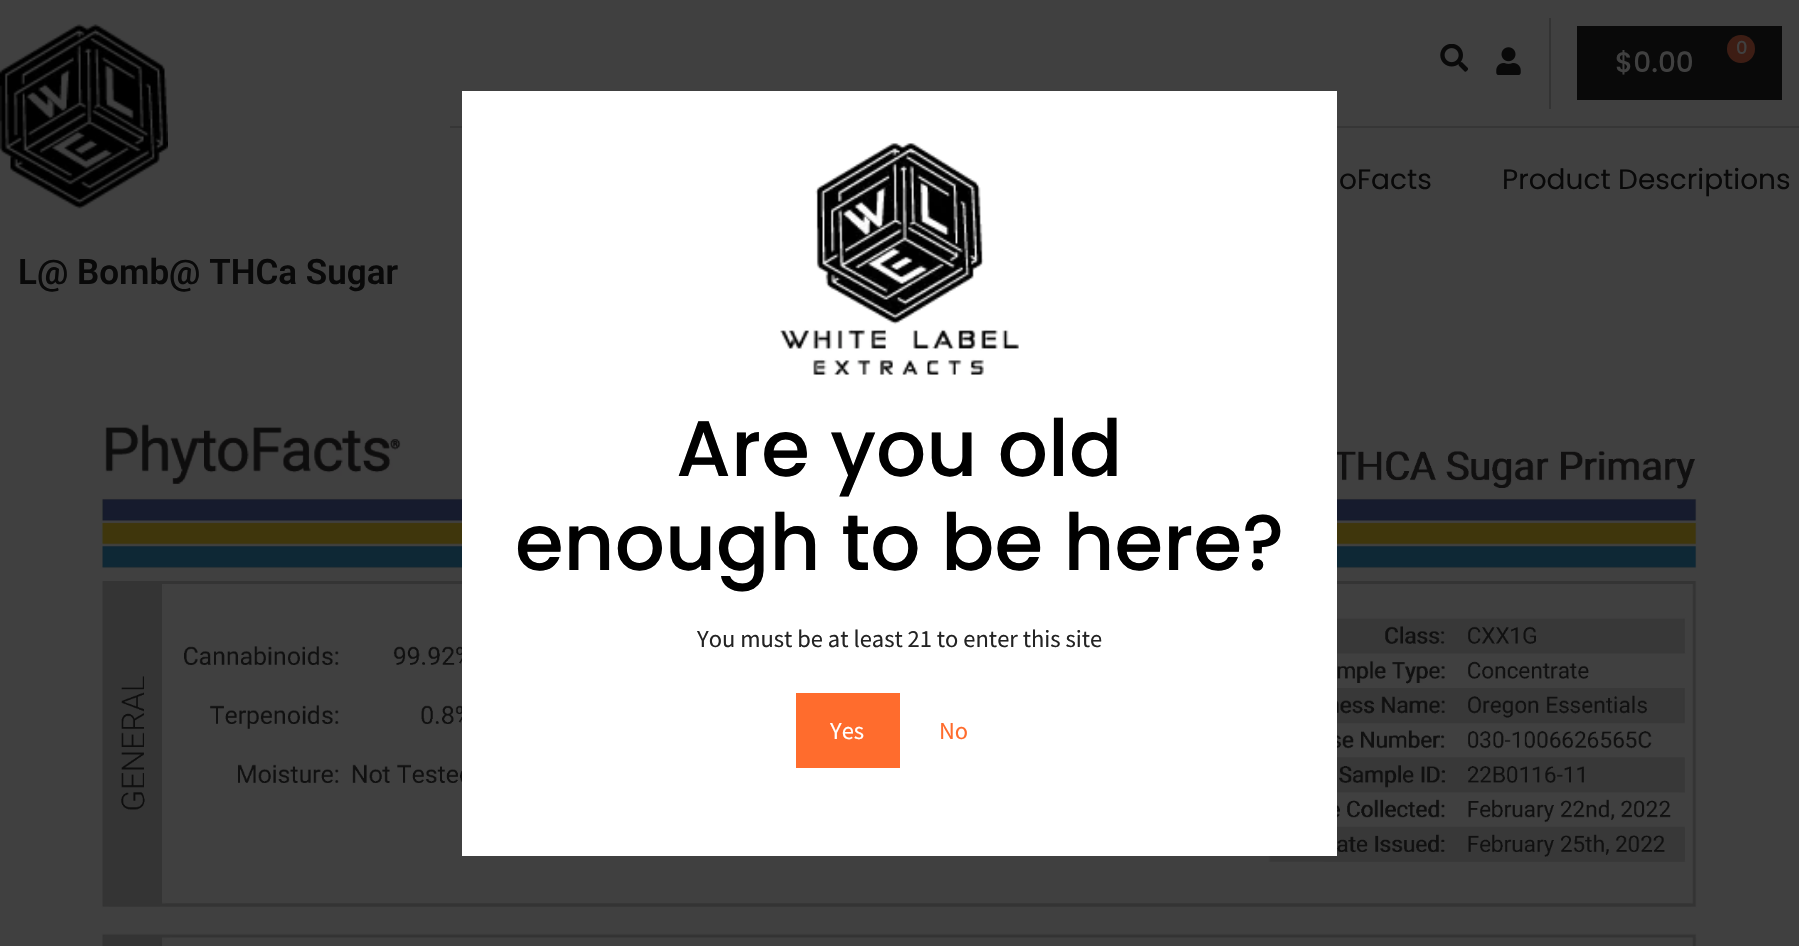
#include "include/core/SkBlurTypes.h"
#include "include/core/SkCanvas.h"
#include "include/core/SkData.h"
#include "include/core/SkFont.h"
#include "include/core/SkFontMgr.h"
#include "include/core/SkImage.h"
#include "include/core/SkMaskFilter.h"
#include "include/core/SkPaint.h"
#include "include/core/SkPathBuilder.h"
#include "include/core/SkTextBlob.h"
#include "include/effects/SkDashPathEffect.h"
#include "include/effects/SkGradientShader.h"
#include "include/utils/SkParsePath.h"

extern sk_sp<SkFontMgr> fontMgr;

void draw(SkCanvas* canvas) {
  SkPaint p;
  p.setAntiAlias(true);
  canvas->clear(SkColorSetRGB(64, 64, 64));
  canvas->drawImageRect(SkImages::DeferredFromEncodedData(SkData::MakeFromFileName("images/1.png")), SkRect::MakeLTRB(0, 24, 168, 209), SkSamplingOptions());
  canvas->drawImageRect(SkImages::DeferredFromEncodedData(SkData::MakeFromFileName("images/2.png")), SkRect::MakeLTRB(1440, 44, 1468, 72), SkSamplingOptions());
  canvas->drawImageRect(SkImages::DeferredFromEncodedData(SkData::MakeFromFileName("images/3.png")), SkRect::MakeLTRB(1496, 47, 1521, 75), SkSamplingOptions());
  p.setColor(SkColorSetRGB(51, 51, 51));
  canvas->drawRect(SkRect::MakeLTRB(1549, 18, 1551, 109), p);
  p.setColor(SkColorSetRGB(9, 9, 9));
  canvas->drawRect(SkRect::MakeLTRB(1577, 26, 1782, 100), p);
  p.setColor(SkColorSetRGB(61, 29, 20));
  canvas->drawCircle(1741, 49, 14, p);
  p.setColor(SkColorSetRGB(54, 54, 54));
  canvas->drawRect(SkRect::MakeLTRB(450, 126, 1799, 128), p);
  canvas->drawImageRect(SkImages::DeferredFromEncodedData(SkData::MakeFromFileName("images/4.png")), SkRect::MakeLTRB(100, 416, 1697, 946), SkSamplingOptions());
  p.setColor(SK_ColorWHITE);
  canvas->drawRect(SkRect::MakeLTRB(462, 91, 1337, 856), p);
  canvas->drawImageRect(SkImages::DeferredFromEncodedData(SkData::MakeFromFileName("images/5.png")), SkRect::MakeLTRB(780, 143, 1019, 375), SkSamplingOptions());
  p.setColor(SkColorSetRGB(255, 108, 45));
  canvas->drawRect(SkRect::MakeLTRB(796, 693, 900, 768), p);
  SkFont font1(fontMgr->matchFamilyStyle("Poppins", SkFontStyle(500, SkFontStyle::kNormal_Width, SkFontStyle::kUpright_Slant)), 18);
  font1.setSubpixel(true);
  p.setColor(SkColorSetRGB(64, 64, 64));
  canvas->drawString("0", 1736, 54, font1, p);
  SkFont font2(fontMgr->matchFamilyStyle("Poppins", SkFontStyle(500, SkFontStyle::kNormal_Width, SkFontStyle::kUpright_Slant)), 28);
  font2.setSubpixel(true);
  canvas->drawString("$0.00", 1615, 72, font2, p);
  SkFont font3(fontMgr->matchFamilyStyle("Poppins", SkFontStyle::Normal()), 28);
  font3.setSubpixel(true);
  p.setColor(SkColorSetRGB(9, 9, 9));
  canvas->drawString("oFacts", 1339, 189, font3, p);
  canvas->drawString("Product Descriptions", 1502, 189, font3, p);
  SkFont font4(fontMgr->matchFamilyStyle("Roboto", SkFontStyle(600, SkFontStyle::kNormal_Width, SkFontStyle::kUpright_Slant)), 35);
  font4.setSubpixel(true);
  canvas->drawString("L@ Bomb@ THCa Sugar", 18, 284, font4, p);
  SkFont font5(fontMgr->matchFamilyStyle("Poppins", SkFontStyle(500, SkFontStyle::kNormal_Width, SkFontStyle::kUpright_Slant)), 78.75f);
  font5.setSubpixel(true);
  p.setColor(SK_ColorBLACK);
  canvas->drawString("Are you old", 676, 476, font5, p);
  canvas->drawString("enough to be here?", 515, 570, font5, p);
  SkFont font6(fontMgr->matchFamilyStyle("Source Sans Pro", SkFontStyle::Normal()), 24.5f);
  font6.setSubpixel(true);
  p.setColor(SkColorSetRGB(35, 35, 35));
  canvas->drawString("You must be at least 21 to enter this site", 697, 647, font6, p);
  p.setColor(SK_ColorWHITE);
  canvas->drawString("Yes", 830, 739, font6, p);
  p.setColor(SkColorSetRGB(255, 108, 45));
  canvas->drawString("No", 939, 739, font6, p);
}
